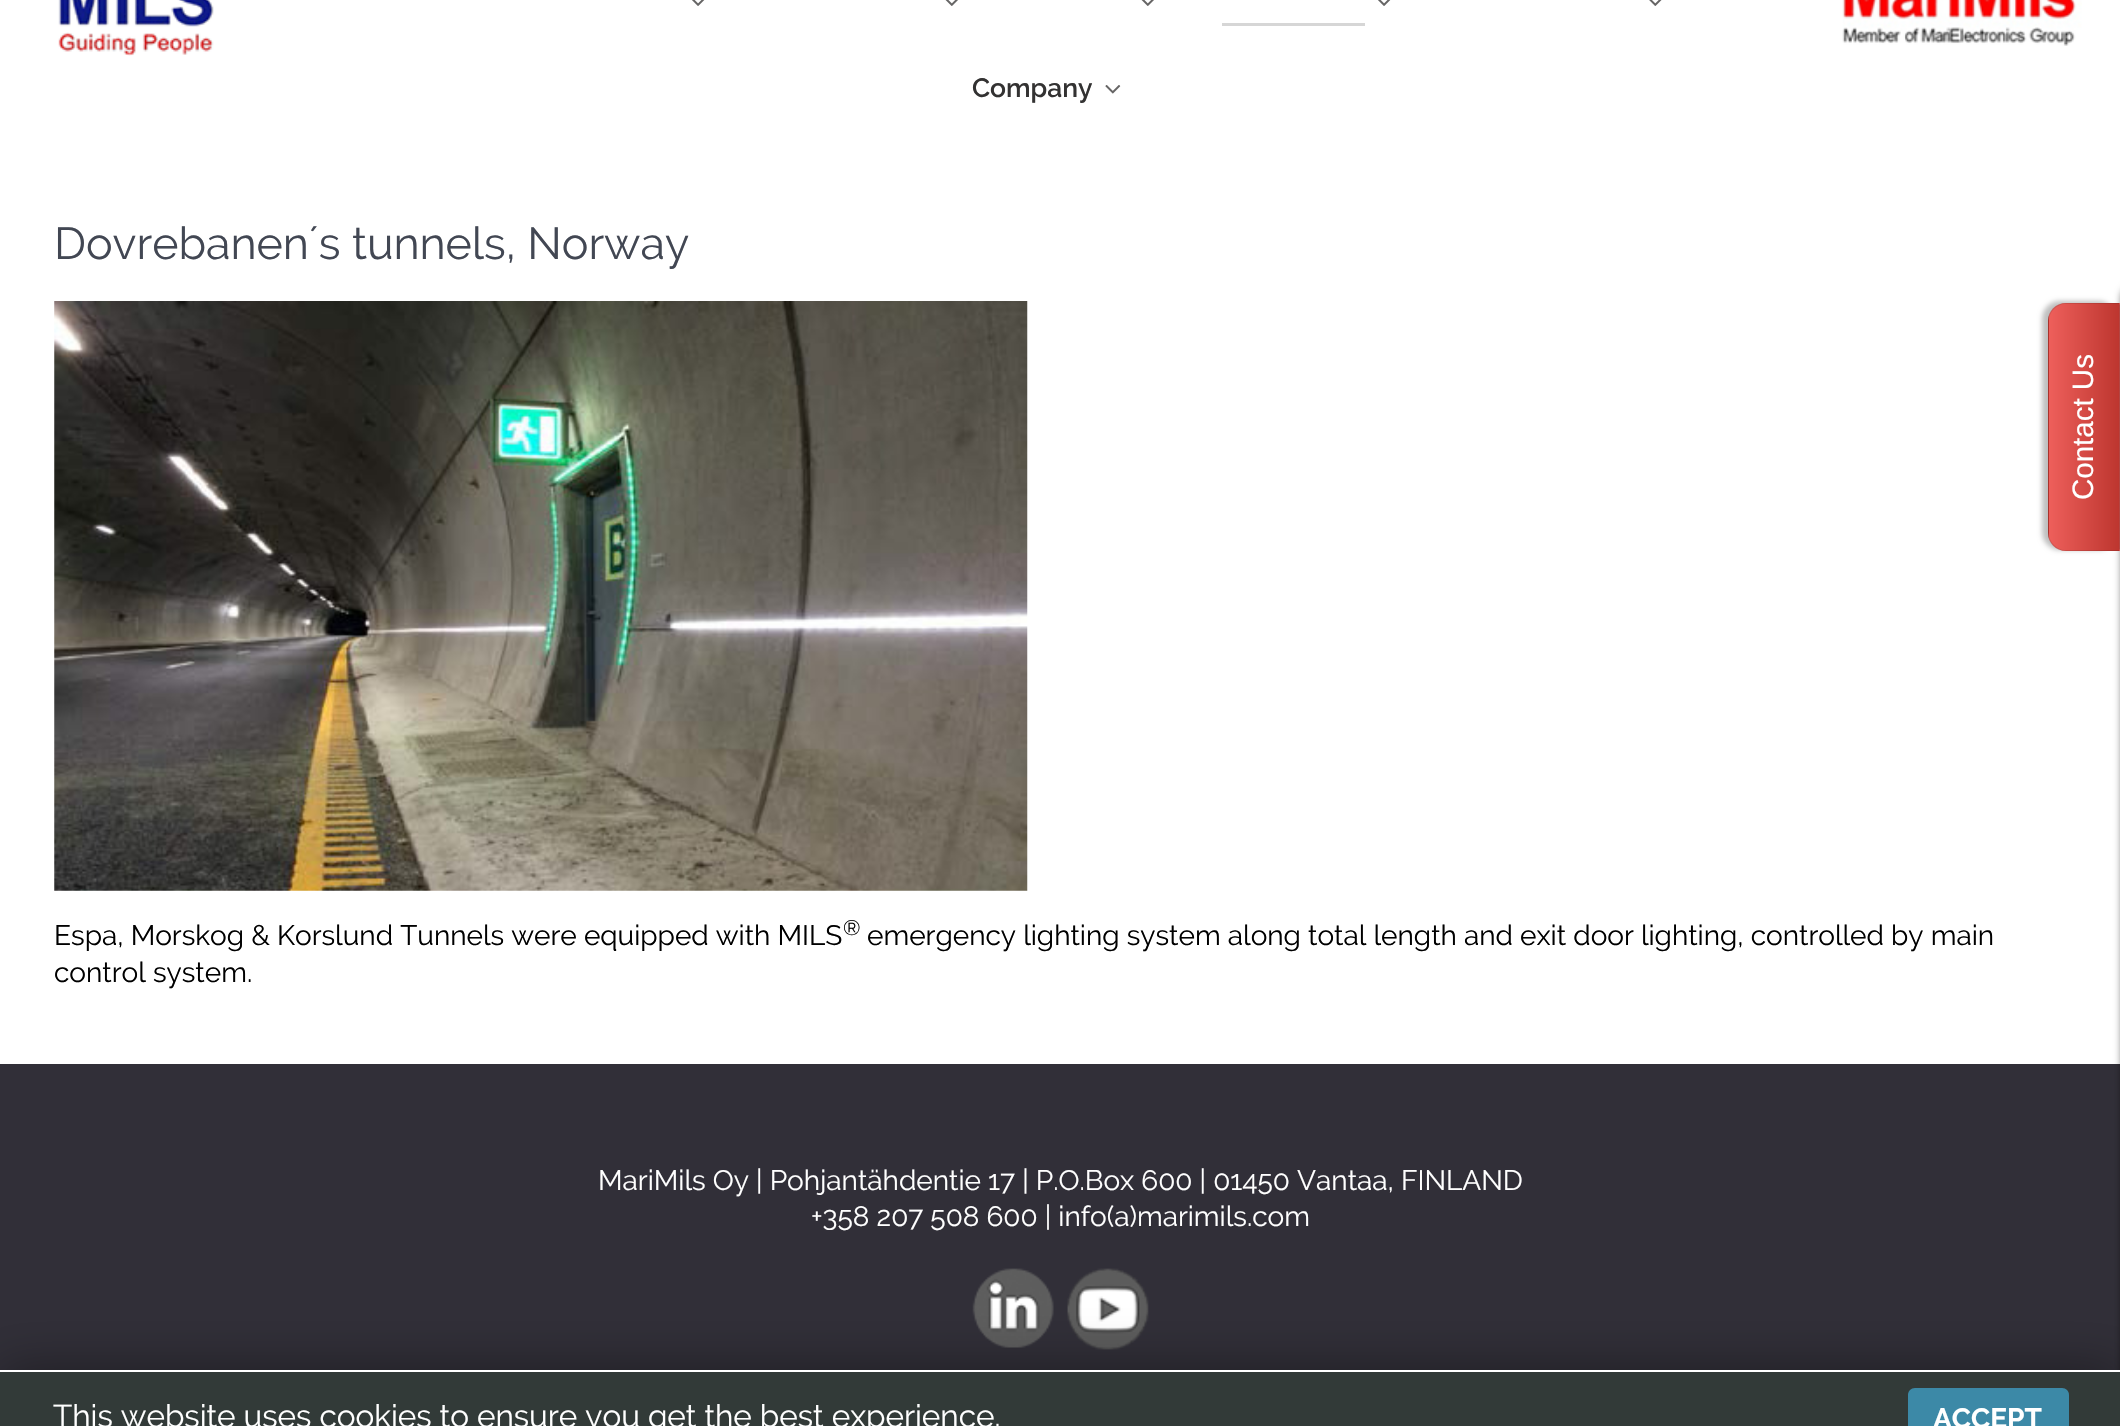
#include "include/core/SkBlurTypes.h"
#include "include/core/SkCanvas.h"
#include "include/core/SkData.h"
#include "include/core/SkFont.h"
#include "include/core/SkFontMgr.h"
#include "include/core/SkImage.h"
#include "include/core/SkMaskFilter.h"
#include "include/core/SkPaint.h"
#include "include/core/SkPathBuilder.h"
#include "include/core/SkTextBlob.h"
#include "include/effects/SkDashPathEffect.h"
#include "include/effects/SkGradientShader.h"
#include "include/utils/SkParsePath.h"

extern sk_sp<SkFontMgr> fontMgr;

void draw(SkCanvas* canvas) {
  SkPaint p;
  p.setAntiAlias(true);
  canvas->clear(SK_ColorWHITE);
  canvas->drawImageRect(SkImages::DeferredFromEncodedData(SkData::MakeFromFileName("images/1.png")), SkRect::MakeLTRB(58, 0, 214, 56), SkSamplingOptions());
  canvas->drawImageRect(SkImages::DeferredFromEncodedData(SkData::MakeFromFileName("images/2.png")), SkRect::MakeLTRB(1842, 0, 2082, 46), SkSamplingOptions());
  canvas->drawImageRect(SkImages::DeferredFromEncodedData(SkData::MakeFromFileName("images/3.png")), SkRect::MakeLTRB(692, 0, 705, 6), SkSamplingOptions());
  canvas->drawImageRect(SkImages::DeferredFromEncodedData(SkData::MakeFromFileName("images/4.png")), SkRect::MakeLTRB(945, 0, 958, 6), SkSamplingOptions());
  canvas->drawImageRect(SkImages::DeferredFromEncodedData(SkData::MakeFromFileName("images/4.png")), SkRect::MakeLTRB(1141, 0, 1154, 6), SkSamplingOptions());
  canvas->drawImageRect(SkImages::DeferredFromEncodedData(SkData::MakeFromFileName("images/3.png")), SkRect::MakeLTRB(1378, 0, 1391, 6), SkSamplingOptions());
  p.setColor(SkColorSetRGB(214, 214, 214));
  canvas->drawRect(SkRect::MakeLTRB(1222, 23, 1365, 26), p);
  canvas->drawImageRect(SkImages::DeferredFromEncodedData(SkData::MakeFromFileName("images/5.png")), SkRect::MakeLTRB(1649, 0, 1662, 6), SkSamplingOptions());
  canvas->drawImageRect(SkImages::DeferredFromEncodedData(SkData::MakeFromFileName("images/6.png")), SkRect::MakeLTRB(1105, 85, 1121, 94), SkSamplingOptions());
  canvas->drawImageRect(SkImages::DeferredFromEncodedData(SkData::MakeFromFileName("images/7.png")), SkRect::MakeLTRB(54, 301, 1028, 891), SkSamplingOptions());
  p.setColor(SkColorSetRGB(49, 47, 56));
  canvas->drawRect(SkRect::MakeLTRB(0, 1064, 2120, 1370), p);
  canvas->drawImageRect(SkImages::DeferredFromEncodedData(SkData::MakeFromFileName("images/8.png")), SkRect::MakeLTRB(972, 1268, 1054, 1348), SkSamplingOptions());
  canvas->drawImageRect(SkImages::DeferredFromEncodedData(SkData::MakeFromFileName("images/9.png")), SkRect::MakeLTRB(1067, 1268, 1149, 1350), SkSamplingOptions());
  p.setColor(SkColorSetARGB(64, 0, 0, 0));
  p.setMaskFilter(SkMaskFilter::MakeBlur(kNormal_SkBlurStyle, 2.5f));
  canvas->drawRoundRect(SkRect::MakeLTRB(2042, 301, 2116, 550), 18, 18, p);
  p.setMaskFilter(nullptr);
  canvas->save();
  canvas->clipPath(SkPathBuilder().moveTo(2066, 303).lineTo(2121, 303).lineTo(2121, 551).lineTo(2066, 551).cubicTo(2056, 551, 2048, 543, 2048, 533).lineTo(2048, 321).cubicTo(2048, 311, 2056, 303, 2066, 303).close().detach(), true);
  {
    const SkColor colors[] = {SkColorSetRGB(238, 95, 91), SkColorSetRGB(189, 54, 47)};
    const float stops[] = {0, 1};
    const SkPoint ends[] = {{1979, 427}, {2049, 427}};
    p.setShader(SkGradientShader::MakeLinear(ends, colors, stops, 2, SkTileMode::kClamp));
    p.setAlpha(255);
  }
  canvas->drawRect(SkRect::MakeLTRB(2048, 315, 2049, 539), p);
  canvas->restore();
  p.setShader(nullptr);
  p.setColor(SkColorSetARGB(128, 0, 0, 0));
  p.setMaskFilter(SkMaskFilter::MakeBlur(kNormal_SkBlurStyle, 3.5f));
  canvas->drawRoundRect(SkRect::MakeLTRB(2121, 285, 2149, 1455), 18, 18, p);
  p.setMaskFilter(nullptr);
  canvas->save();
  canvas->clipPath(SkPathBuilder().moveTo(2066, 303).lineTo(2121, 303).lineTo(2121, 551).lineTo(2066, 551).cubicTo(2056, 551, 2048, 543, 2048, 533).lineTo(2048, 321).cubicTo(2048, 311, 2056, 303, 2066, 303).close().detach(), true);
  {
    const SkColor colors[] = {SkColorSetRGB(238, 95, 91), SkColorSetRGB(189, 54, 47)};
    const float stops[] = {0, 1};
    const SkPoint ends[] = {{2049, 427}, {2119, 427}};
    p.setShader(SkGradientShader::MakeLinear(ends, colors, stops, 2, SkTileMode::kClamp));
    p.setAlpha(255);
  }
  canvas->drawRect(SkRect::MakeLTRB(2049, 303, 2119, 551), p);
  canvas->restore();
  {
    const SkColor colors[] = {SkColorSetRGB(238, 95, 91), SkColorSetRGB(189, 54, 47)};
    const float stops[] = {0, 1};
    const SkPoint ends[] = {{2119, 427}, {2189, 427}};
    p.setShader(SkGradientShader::MakeLinear(ends, colors, stops, 2, SkTileMode::kClamp));
    p.setAlpha(255);
  }
  canvas->drawRect(SkRect::MakeLTRB(2119, 303, 2120, 551), p);
  p.setShader(nullptr);
  p.setColor(SkColorSetARGB(26, 0, 0, 0));
  canvas->drawPath(SkPathBuilder().moveTo(2065, 303).cubicTo(2060, 303, 2056, 305, 2053, 308).lineTo(2054, 309).cubicTo(2057, 306, 2061, 304, 2065, 304).lineTo(2119, 304).lineTo(2119, 305).lineTo(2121, 303).close().detach(), p);
  p.setColor(SkColorSetARGB(64, 0, 0, 0));
  canvas->drawPath(SkPathBuilder().moveTo(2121, 551).lineTo(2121, 303).lineTo(2119, 305).lineTo(2119, 549).close().detach(), p);
  p.setColor(SkColorSetARGB(26, 0, 0, 0));
  canvas->drawPath(SkPathBuilder().moveTo(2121, 551).lineTo(2065, 551).cubicTo(2060, 551, 2056, 549, 2053, 546).lineTo(2054, 545).cubicTo(2057, 548, 2061, 550, 2065, 550).lineTo(2119, 550).lineTo(2119, 549).close().detach(), p);
  canvas->drawPath(SkPathBuilder().moveTo(2053, 308).cubicTo(2050, 311, 2048, 315, 2048, 320).lineTo(2048, 534).cubicTo(2048, 539, 2050, 543, 2053, 546).lineTo(2054, 545).cubicTo(2051, 542, 2049, 538, 2049, 534).lineTo(2049, 320).cubicTo(2049, 316, 2051, 312, 2054, 309).close().detach(), p);
  p.setColor(SkColorSetARGB(102, 0, 0, 0));
  p.setMaskFilter(SkMaskFilter::MakeBlur(kNormal_SkBlurStyle, 26));
  canvas->drawRect(SkRect::MakeLTRB(0, 1370, 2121, 1426), p);
  p.setMaskFilter(nullptr);
  p.setColor(SkColorSetRGB(50, 58, 56));
  canvas->drawRect(SkRect::MakeLTRB(0, 1372, 2120, 1426), p);
  p.setColor(SK_ColorWHITE);
  canvas->drawRect(SkRect::MakeLTRB(0, 1370, 2120, 1372), p);
  p.setColor(SkColorSetRGB(60, 137, 167));
  canvas->drawPath(SkPathBuilder().moveTo(1915, 1388).lineTo(2062, 1388).cubicTo(2066, 1388, 2069, 1391, 2069, 1395).lineTo(2069, 1426).lineTo(1908, 1426).lineTo(1908, 1395).cubicTo(1908, 1391, 1911, 1388, 1915, 1388).close().detach(), p);
  SkFont font1(fontMgr->matchFamilyStyle("Raleway", SkFontStyle(600, SkFontStyle::kNormal_Width, SkFontStyle::kUpright_Slant)), 26.5f);
  font1.setSubpixel(true);
  p.setColor(SkColorSetRGB(51, 50, 50));
  canvas->drawString("Company", 972, 97, font1, p);
  SkFont font2(fontMgr->matchFamilyStyle("Raleway", SkFontStyle::Normal()), 44.75f);
  font2.setSubpixel(true);
  p.setColor(SkColorSetRGB(66, 71, 83));
  canvas->drawString("Dovrebanen´s tunnels, Norway", 54, 259, font2, p);
  SkFont font3(fontMgr->matchFamilyStyle("Raleway", SkFontStyle::Normal()), 28);
  font3.setSubpixel(true);
  p.setColor(SK_ColorBLACK);
  canvas->drawString("Espa, Morskog & Korslund Tunnels were equipped with MILS", 54, 945, font3, p);
  SkFont font4(fontMgr->matchFamilyStyle("Raleway", SkFontStyle::Normal()), 21);
  font4.setSubpixel(true);
  canvas->drawString("®", 843, 935, font4, p);
  canvas->drawString("emergency lighting system along total length and exit door lighting, controlled by main", 867, 945, font3, p);
  canvas->drawString("control system.", 54, 982, font3, p);
  p.setColor(SK_ColorWHITE);
  canvas->drawString("MariMils Oy | Pohjantähdentie 17 | P.O.Box 600 | 01450 Vantaa, FINLAND", 598, 1190, font3, p);
  canvas->drawString("+358 207 508 600 | info(a)marimils.com", 811, 1226, font3, p);
  SkFont font5(fontMgr->matchFamilyStyle("Liberation Sans", SkFontStyle::Normal()), 29.5f);
  font5.setSubpixel(true);
  canvas->save();
  canvas->rotate(-90, 2093, 500);
  canvas->drawString("Contact Us", 2093, 500, font5, p);
  canvas->restore();
  SkFont font6(fontMgr->matchFamilyStyle("Raleway", SkFontStyle::Normal()), 31.5f);
  font6.setSubpixel(true);
  canvas->drawString("This website uses cookies to ensure you get the best experience.", 53, 1427, font6, p);
  SkFont font7(fontMgr->matchFamilyStyle("Raleway", SkFontStyle::Bold()), 28);
  font7.setSubpixel(true);
  canvas->drawString("ACCEPT", 1933, 1428, font7, p);
}
